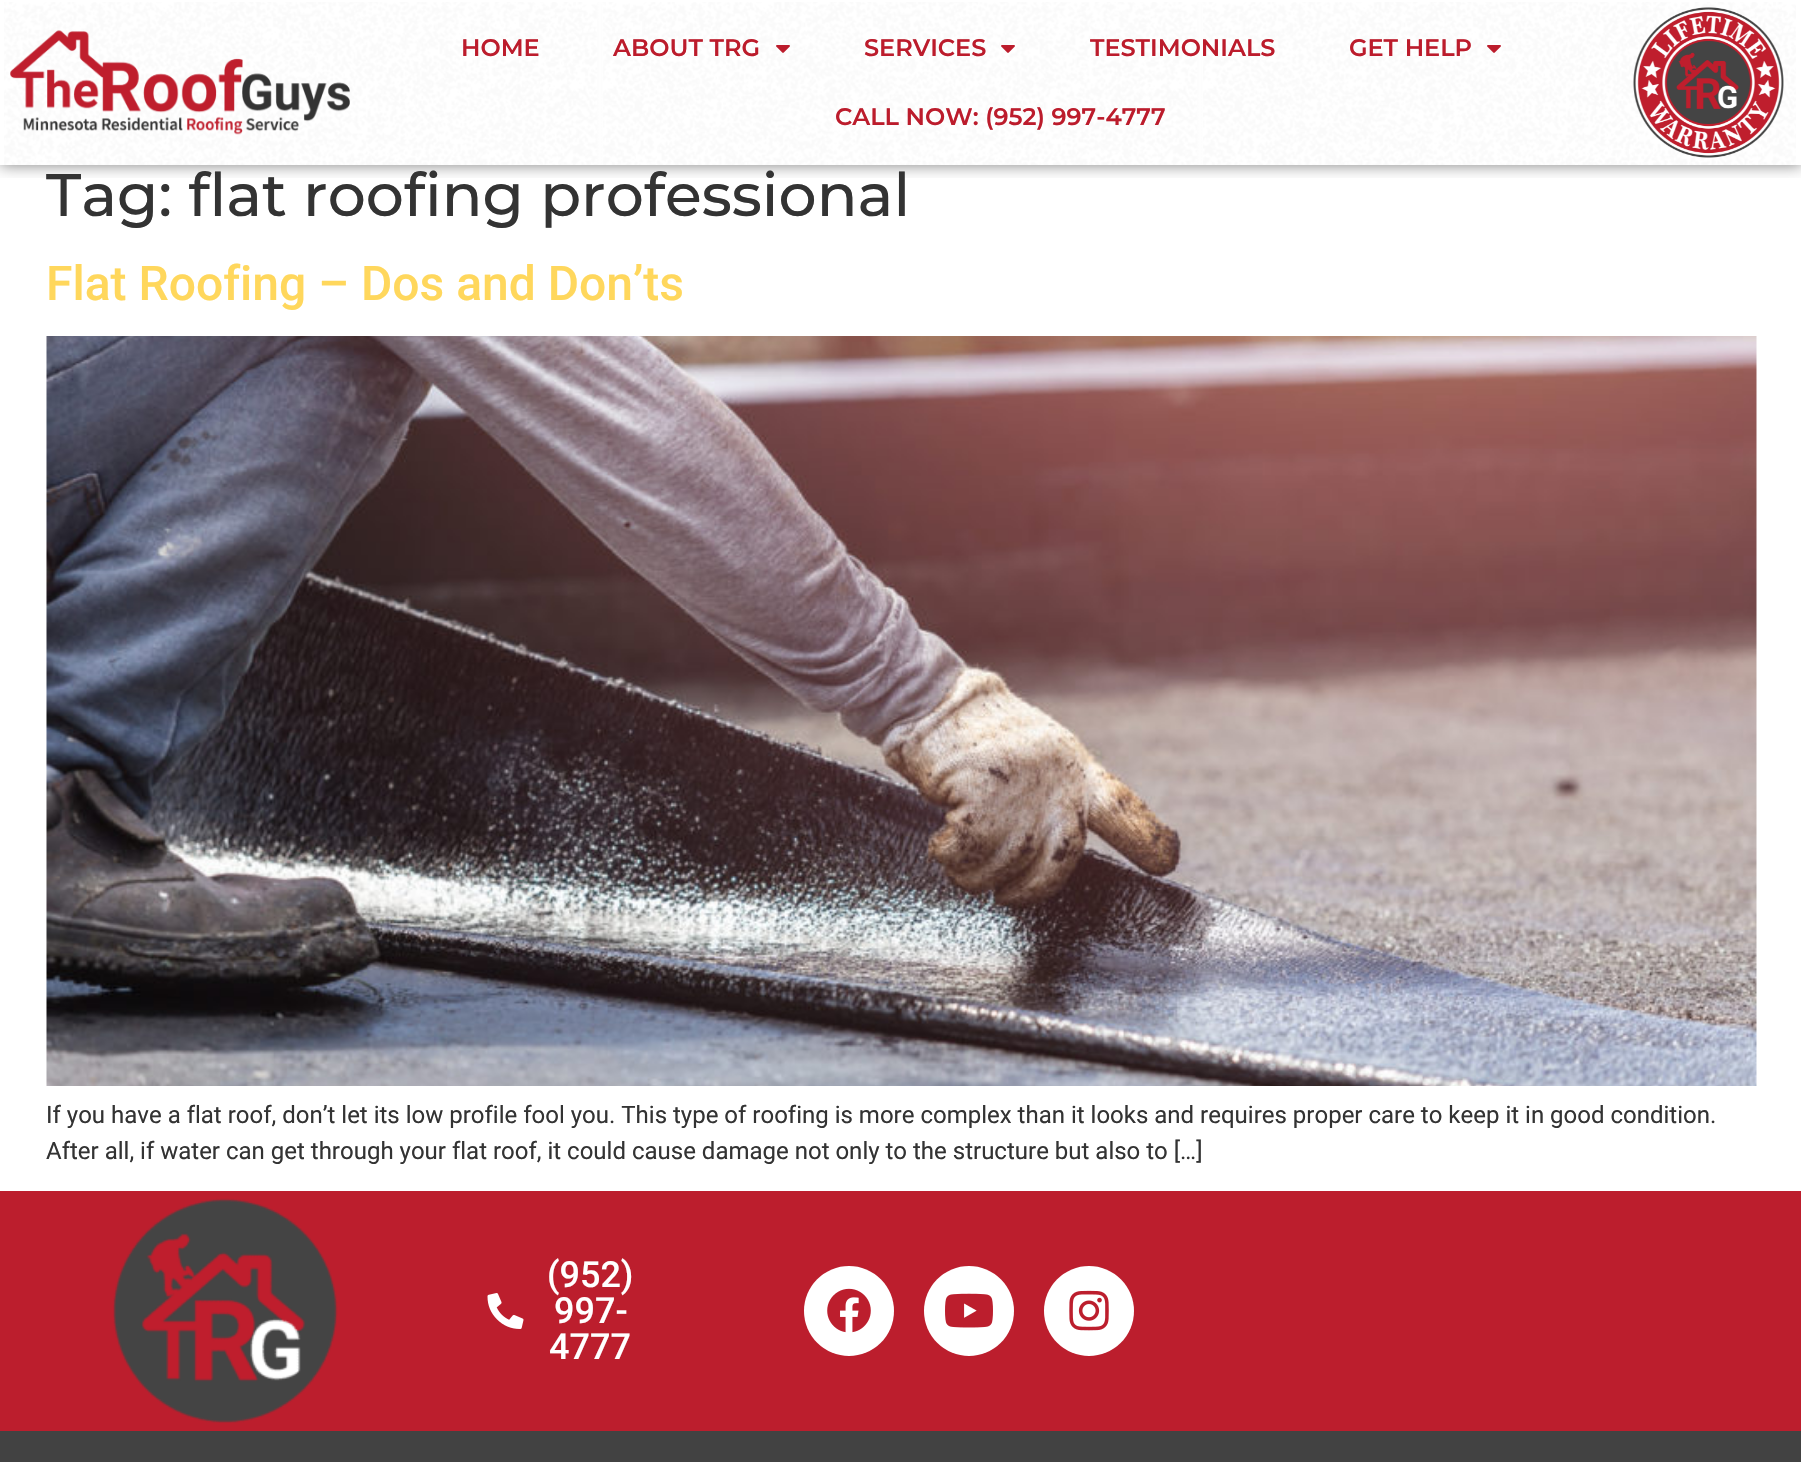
#include "include/core/SkBlurTypes.h"
#include "include/core/SkCanvas.h"
#include "include/core/SkData.h"
#include "include/core/SkFont.h"
#include "include/core/SkFontMgr.h"
#include "include/core/SkImage.h"
#include "include/core/SkMaskFilter.h"
#include "include/core/SkPaint.h"
#include "include/core/SkPathBuilder.h"
#include "include/core/SkTextBlob.h"
#include "include/effects/SkDashPathEffect.h"
#include "include/effects/SkGradientShader.h"
#include "include/utils/SkParsePath.h"

extern sk_sp<SkFontMgr> fontMgr;

void draw(SkCanvas* canvas) {
  SkPaint p;
  p.setAntiAlias(true);
  canvas->clear(SK_ColorWHITE);
  canvas->save();
  canvas->clipRect(SkRect::MakeLTRB(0, 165, 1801, 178));
  p.setColor(SkColorSetARGB(128, 0, 0, 0));
  p.setMaskFilter(SkMaskFilter::MakeBlur(kNormal_SkBlurStyle, 7.5f));
  canvas->drawRect(SkRect::MakeLTRB(0, 0, 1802, 165), p);
  p.setMaskFilter(nullptr);
  canvas->restore();
  canvas->drawImageRect(SkImages::DeferredFromEncodedData(SkData::MakeFromFileName("images/1.png")), SkRect::MakeLTRB(4, 2, 1796, 165), SkSamplingOptions());
  canvas->drawImageRect(SkImages::DeferredFromEncodedData(SkData::MakeFromFileName("images/2.png")), SkRect::MakeLTRB(10, 30, 350, 135), SkSamplingOptions());
  canvas->drawImageRect(SkImages::DeferredFromEncodedData(SkData::MakeFromFileName("images/3.png")), SkRect::MakeLTRB(776, 45, 790, 53), SkSamplingOptions());
  canvas->drawImageRect(SkImages::DeferredFromEncodedData(SkData::MakeFromFileName("images/4.png")), SkRect::MakeLTRB(1001, 45, 1015, 53), SkSamplingOptions());
  canvas->drawImageRect(SkImages::DeferredFromEncodedData(SkData::MakeFromFileName("images/5.png")), SkRect::MakeLTRB(1487, 45, 1501, 53), SkSamplingOptions());
  canvas->drawImageRect(SkImages::DeferredFromEncodedData(SkData::MakeFromFileName("images/6.png")), SkRect::MakeLTRB(1633, 7, 1784, 158), SkSamplingOptions());
  canvas->drawImageRect(SkImages::DeferredFromEncodedData(SkData::MakeFromFileName("images/7.png")), SkRect::MakeLTRB(46, 336, 1757, 1086), SkSamplingOptions());
  p.setColor(SkColorSetRGB(188, 30, 45));
  canvas->drawRect(SkRect::MakeLTRB(0, 1191, 1801, 1431), p);
  canvas->drawImageRect(SkImages::DeferredFromEncodedData(SkData::MakeFromFileName("images/8.png")), SkRect::MakeLTRB(113, 1198, 338, 1423), SkSamplingOptions());
  canvas->drawImageRect(SkImages::DeferredFromEncodedData(SkData::MakeFromFileName("images/9.png")), SkRect::MakeLTRB(487, 1293, 524, 1329), SkSamplingOptions());
  p.setColor(SK_ColorWHITE);
  canvas->drawCircle(849, 1311, 45, p);
  canvas->drawImageRect(SkImages::DeferredFromEncodedData(SkData::MakeFromFileName("images/10.png")), SkRect::MakeLTRB(827, 1288, 871, 1333), SkSamplingOptions());
  canvas->drawCircle(969, 1311, 45, p);
  canvas->drawImageRect(SkImages::DeferredFromEncodedData(SkData::MakeFromFileName("images/11.png")), SkRect::MakeLTRB(945, 1293, 993, 1328), SkSamplingOptions());
  canvas->drawCircle(1089, 1311, 45, p);
  canvas->drawImageRect(SkImages::DeferredFromEncodedData(SkData::MakeFromFileName("images/12.png")), SkRect::MakeLTRB(1069, 1290, 1109, 1331), SkSamplingOptions());
  p.setColor(SkColorSetRGB(66, 66, 66));
  canvas->drawRect(SkRect::MakeLTRB(0, 1431, 1801, 1462), p);
  SkFont font1(fontMgr->matchFamilyStyle("Montserrat", SkFontStyle(600, SkFontStyle::kNormal_Width, SkFontStyle::kUpright_Slant)), 24);
  font1.setSubpixel(true);
  p.setColor(SkColorSetRGB(188, 28, 44));
  canvas->drawString("HOME", 461, 56, font1, p);
  canvas->drawString("ABOUT TRG", 613, 56, font1, p);
  canvas->drawString("SERVICES", 864, 56, font1, p);
  canvas->drawString("TESTIMONIALS", 1090, 56, font1, p);
  canvas->drawString("GET HELP", 1349, 56, font1, p);
  canvas->drawString("CALL NOW: (952) 997-4777", 835, 125, font1, p);
  SkFont font2(fontMgr->matchFamilyStyle("Montserrat", SkFontStyle(500, SkFontStyle::kNormal_Width, SkFontStyle::kUpright_Slant)), 60);
  font2.setSubpixel(true);
  p.setColor(SkColorSetRGB(51, 51, 51));
  canvas->drawString("Tag: flat roofing professional", 46, 216, font2, p);
  SkFont font3(fontMgr->matchFamilyStyle("Roboto", SkFontStyle(500, SkFontStyle::kNormal_Width, SkFontStyle::kUpright_Slant)), 48);
  font3.setSubpixel(true);
  p.setColor(SkColorSetRGB(255, 215, 92));
  canvas->drawString("Flat Roofing – Dos and Don’ts", 46, 300, font3, p);
  SkFont font4(fontMgr->matchFamilyStyle("Roboto", SkFontStyle::Normal()), 24);
  font4.setSubpixel(true);
  p.setColor(SkColorSetRGB(51, 51, 51));
  canvas->drawString("If you have a flat roof, don’t let its low profile fool you. This type of roofing is more complex than it looks and requires proper care to keep it in good condition.", 46, 1123, font4, p);
  canvas->drawString("After all, if water can get through your flat roof, it could cause damage not only to the structure but also to […]", 46, 1159, font4, p);
  SkFont font5(fontMgr->matchFamilyStyle("Roboto", SkFontStyle(500, SkFontStyle::kNormal_Width, SkFontStyle::kUpright_Slant)), 36);
  font5.setSubpixel(true);
  p.setColor(SK_ColorWHITE);
  canvas->drawString("(952)", 547, 1287, font5, p);
  canvas->drawString("997-", 554, 1323, font5, p);
  canvas->drawString("4777", 549, 1359, font5, p);
}
